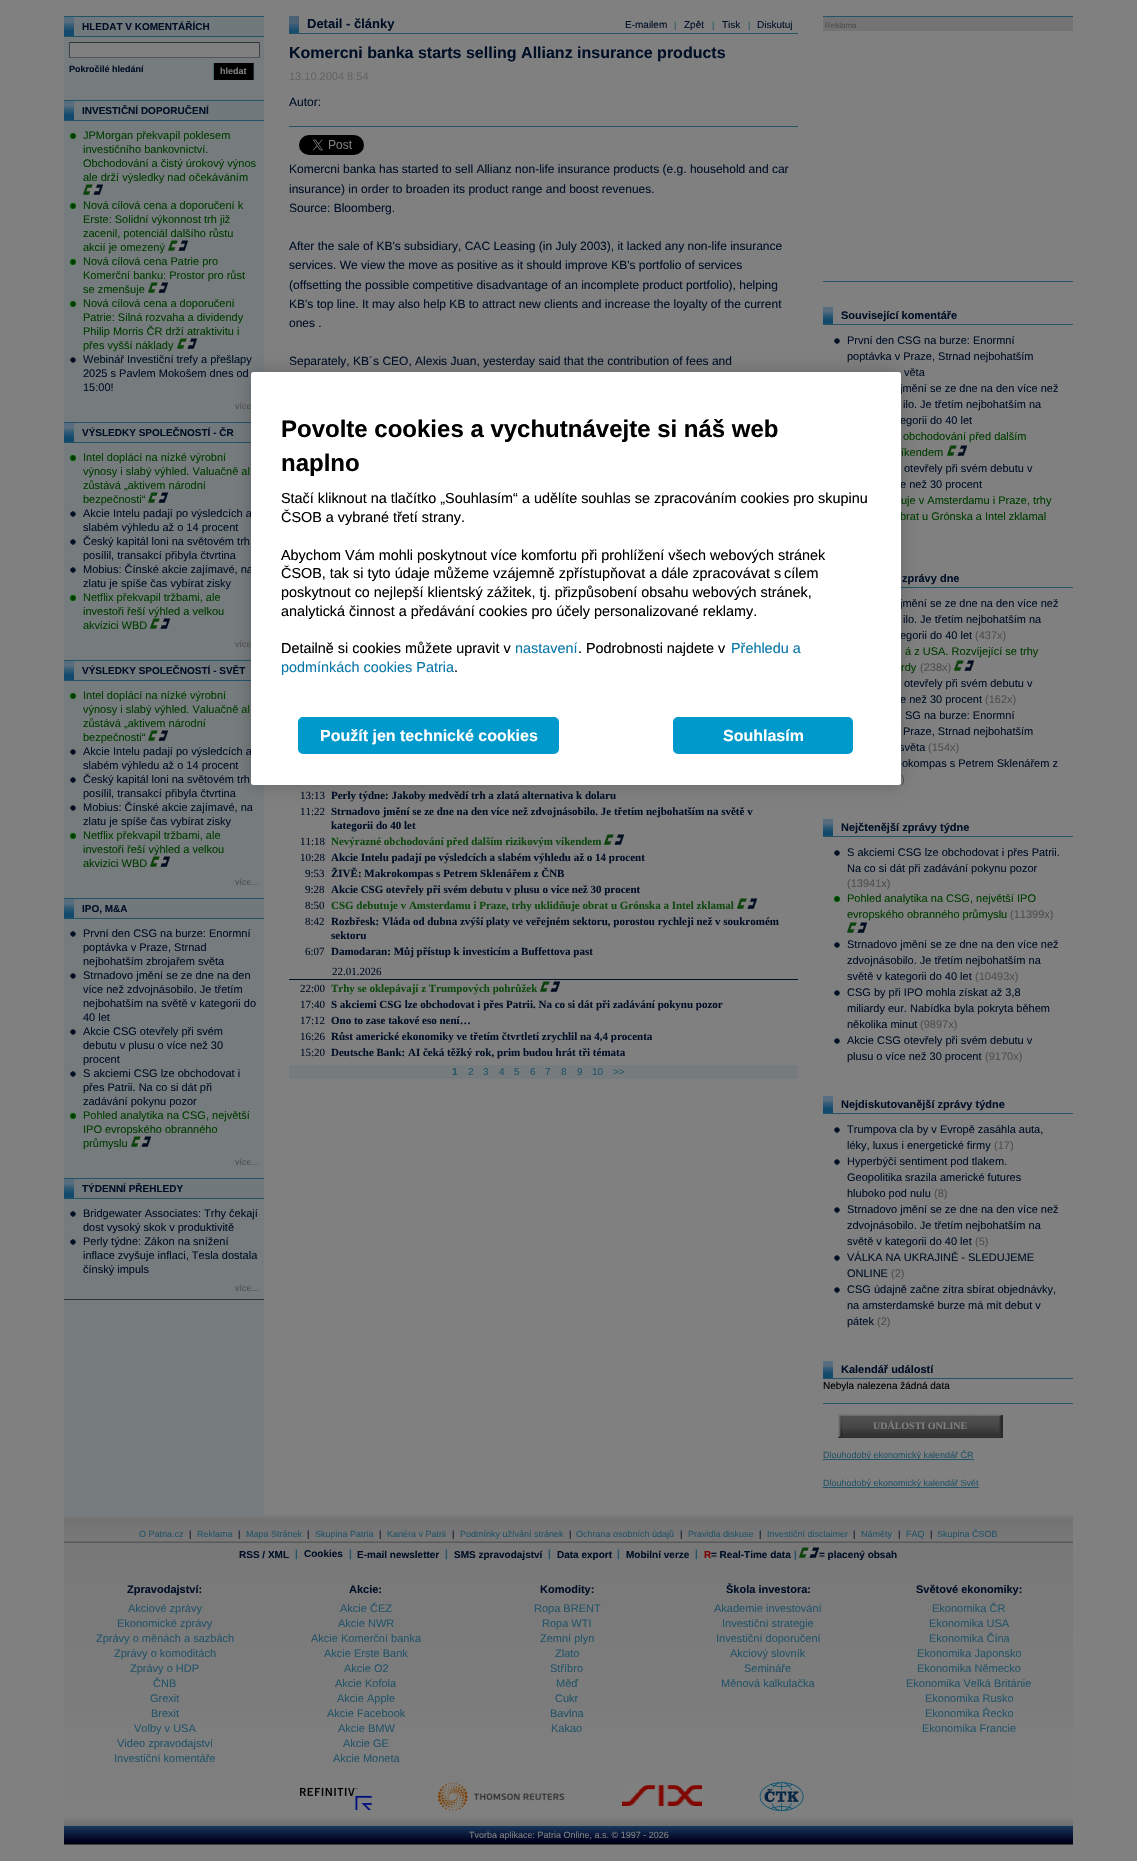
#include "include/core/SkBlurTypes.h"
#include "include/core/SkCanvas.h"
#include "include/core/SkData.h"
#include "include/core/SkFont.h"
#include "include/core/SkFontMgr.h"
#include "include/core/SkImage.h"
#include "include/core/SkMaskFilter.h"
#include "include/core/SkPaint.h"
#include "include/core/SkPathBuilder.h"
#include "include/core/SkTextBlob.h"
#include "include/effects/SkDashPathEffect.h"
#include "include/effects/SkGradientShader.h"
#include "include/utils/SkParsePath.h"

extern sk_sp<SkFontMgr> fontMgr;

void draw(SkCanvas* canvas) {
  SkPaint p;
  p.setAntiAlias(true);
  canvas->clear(SkColorSetRGB(128, 128, 128));
  p.setColor(SkColorSetRGB(118, 123, 125));
  canvas->drawRect(SkRect::MakeLTRB(64, 37, 264, 1515), p);
  p.setColor(SkColorSetRGB(114, 121, 124));
  canvas->drawRect(SkRect::MakeLTRB(74, 17, 264, 36), p);
  canvas->drawImageRect(SkImages::DeferredFromEncodedData(SkData::MakeFromFileName("images/1.png")), SkRect::MakeLTRB(64, 17, 74, 36), SkSamplingOptions());
  p.setColor(SkColorSetRGB(35, 83, 103));
  canvas->drawRect(SkRect::MakeLTRB(64, 16, 264, 17), p);
  canvas->drawRect(SkRect::MakeLTRB(64, 36, 264, 37), p);
  p.setColor(SkColorSetRGB(128, 128, 128));
  canvas->drawRect(SkRect::MakeLTRB(70, 43, 259, 57), p);
  p.setColor(SkColorSetRGB(51, 51, 51));
  canvas->drawRect(SkRect::MakeLTRB(69, 42, 260, 43), p);
  p.setColor(SkColorSetRGB(61, 67, 70));
  canvas->drawRect(SkRect::MakeLTRB(259, 42, 260, 58), p);
  p.setColor(SkColorSetRGB(84, 84, 85));
  canvas->drawRect(SkRect::MakeLTRB(69, 57, 260, 58), p);
  p.setColor(SkColorSetRGB(61, 67, 70));
  canvas->drawRect(SkRect::MakeLTRB(69, 42, 70, 58), p);
  p.setColor(SK_ColorBLACK);
  canvas->drawRect(SkRect::MakeLTRB(214, 63, 253, 80), p);
  p.setColor(SkColorSetRGB(26, 38, 56));
  canvas->drawRect(SkRect::MakeLTRB(253, 63, 254, 80), p);
  p.setColor(SkColorSetRGB(81, 105, 115));
  canvas->drawRect(SkRect::MakeLTRB(213, 63, 214, 80), p);
  p.setColor(SkColorSetRGB(114, 121, 124));
  canvas->drawRect(SkRect::MakeLTRB(74, 101, 264, 120), p);
  canvas->drawImageRect(SkImages::DeferredFromEncodedData(SkData::MakeFromFileName("images/1.png")), SkRect::MakeLTRB(64, 101, 74, 120), SkSamplingOptions());
  p.setColor(SkColorSetRGB(35, 83, 103));
  canvas->drawRect(SkRect::MakeLTRB(64, 100, 264, 101), p);
  canvas->drawRect(SkRect::MakeLTRB(64, 120, 264, 121), p);
  canvas->drawImageRect(SkImages::DeferredFromEncodedData(SkData::MakeFromFileName("images/2.png")), SkRect::MakeLTRB(70, 133, 76, 139), SkSamplingOptions());
  canvas->drawImageRect(SkImages::DeferredFromEncodedData(SkData::MakeFromFileName("images/3.png")), SkRect::MakeLTRB(83, 184, 103, 195), SkSamplingOptions());
  canvas->drawImageRect(SkImages::DeferredFromEncodedData(SkData::MakeFromFileName("images/2.png")), SkRect::MakeLTRB(70, 203, 76, 209), SkSamplingOptions());
  canvas->drawImageRect(SkImages::DeferredFromEncodedData(SkData::MakeFromFileName("images/3.png")), SkRect::MakeLTRB(168, 240, 188, 251), SkSamplingOptions());
  canvas->drawImageRect(SkImages::DeferredFromEncodedData(SkData::MakeFromFileName("images/2.png")), SkRect::MakeLTRB(70, 259, 76, 265), SkSamplingOptions());
  canvas->drawImageRect(SkImages::DeferredFromEncodedData(SkData::MakeFromFileName("images/3.png")), SkRect::MakeLTRB(148, 282, 168, 293), SkSamplingOptions());
  canvas->drawImageRect(SkImages::DeferredFromEncodedData(SkData::MakeFromFileName("images/2.png")), SkRect::MakeLTRB(70, 301, 76, 307), SkSamplingOptions());
  canvas->drawImageRect(SkImages::DeferredFromEncodedData(SkData::MakeFromFileName("images/3.png")), SkRect::MakeLTRB(177, 338, 197, 349), SkSamplingOptions());
  canvas->drawImageRect(SkImages::DeferredFromEncodedData(SkData::MakeFromFileName("images/4.png")), SkRect::MakeLTRB(70, 357, 76, 363), SkSamplingOptions());
  p.setColor(SkColorSetRGB(114, 121, 124));
  canvas->drawRect(SkRect::MakeLTRB(74, 423, 251, 442), p);
  canvas->drawImageRect(SkImages::DeferredFromEncodedData(SkData::MakeFromFileName("images/1.png")), SkRect::MakeLTRB(64, 423, 74, 442), SkSamplingOptions());
  p.setColor(SkColorSetRGB(35, 83, 103));
  canvas->drawRect(SkRect::MakeLTRB(64, 422, 251, 423), p);
  canvas->drawRect(SkRect::MakeLTRB(64, 442, 251, 443), p);
  canvas->drawImageRect(SkImages::DeferredFromEncodedData(SkData::MakeFromFileName("images/2.png")), SkRect::MakeLTRB(70, 455, 76, 461), SkSamplingOptions());
  canvas->drawImageRect(SkImages::DeferredFromEncodedData(SkData::MakeFromFileName("images/3.png")), SkRect::MakeLTRB(148, 492, 168, 503), SkSamplingOptions());
  canvas->drawImageRect(SkImages::DeferredFromEncodedData(SkData::MakeFromFileName("images/4.png")), SkRect::MakeLTRB(70, 511, 76, 517), SkSamplingOptions());
  canvas->drawImageRect(SkImages::DeferredFromEncodedData(SkData::MakeFromFileName("images/4.png")), SkRect::MakeLTRB(70, 539, 76, 545), SkSamplingOptions());
  canvas->drawImageRect(SkImages::DeferredFromEncodedData(SkData::MakeFromFileName("images/4.png")), SkRect::MakeLTRB(70, 567, 76, 573), SkSamplingOptions());
  canvas->drawImageRect(SkImages::DeferredFromEncodedData(SkData::MakeFromFileName("images/2.png")), SkRect::MakeLTRB(70, 595, 76, 601), SkSamplingOptions());
  canvas->drawImageRect(SkImages::DeferredFromEncodedData(SkData::MakeFromFileName("images/3.png")), SkRect::MakeLTRB(150, 618, 170, 629), SkSamplingOptions());
  p.setColor(SkColorSetRGB(114, 121, 124));
  canvas->drawRect(SkRect::MakeLTRB(74, 661, 251, 680), p);
  canvas->drawImageRect(SkImages::DeferredFromEncodedData(SkData::MakeFromFileName("images/1.png")), SkRect::MakeLTRB(64, 661, 74, 680), SkSamplingOptions());
  p.setColor(SkColorSetRGB(35, 83, 103));
  canvas->drawRect(SkRect::MakeLTRB(64, 660, 251, 661), p);
  canvas->drawRect(SkRect::MakeLTRB(64, 680, 251, 681), p);
  canvas->drawImageRect(SkImages::DeferredFromEncodedData(SkData::MakeFromFileName("images/2.png")), SkRect::MakeLTRB(70, 693, 76, 699), SkSamplingOptions());
  canvas->drawImageRect(SkImages::DeferredFromEncodedData(SkData::MakeFromFileName("images/3.png")), SkRect::MakeLTRB(148, 730, 168, 741), SkSamplingOptions());
  canvas->drawImageRect(SkImages::DeferredFromEncodedData(SkData::MakeFromFileName("images/4.png")), SkRect::MakeLTRB(70, 749, 76, 755), SkSamplingOptions());
  canvas->drawImageRect(SkImages::DeferredFromEncodedData(SkData::MakeFromFileName("images/4.png")), SkRect::MakeLTRB(70, 777, 76, 783), SkSamplingOptions());
  canvas->drawImageRect(SkImages::DeferredFromEncodedData(SkData::MakeFromFileName("images/4.png")), SkRect::MakeLTRB(70, 805, 76, 811), SkSamplingOptions());
  canvas->drawImageRect(SkImages::DeferredFromEncodedData(SkData::MakeFromFileName("images/2.png")), SkRect::MakeLTRB(70, 833, 76, 839), SkSamplingOptions());
  canvas->drawImageRect(SkImages::DeferredFromEncodedData(SkData::MakeFromFileName("images/3.png")), SkRect::MakeLTRB(150, 856, 170, 867), SkSamplingOptions());
  p.setColor(SkColorSetRGB(114, 121, 124));
  canvas->drawRect(SkRect::MakeLTRB(74, 899, 264, 918), p);
  canvas->drawImageRect(SkImages::DeferredFromEncodedData(SkData::MakeFromFileName("images/1.png")), SkRect::MakeLTRB(64, 899, 74, 918), SkSamplingOptions());
  p.setColor(SkColorSetRGB(35, 83, 103));
  canvas->drawRect(SkRect::MakeLTRB(64, 898, 264, 899), p);
  canvas->drawRect(SkRect::MakeLTRB(64, 918, 264, 919), p);
  canvas->drawImageRect(SkImages::DeferredFromEncodedData(SkData::MakeFromFileName("images/4.png")), SkRect::MakeLTRB(70, 931, 76, 937), SkSamplingOptions());
  canvas->drawImageRect(SkImages::DeferredFromEncodedData(SkData::MakeFromFileName("images/4.png")), SkRect::MakeLTRB(70, 973, 76, 979), SkSamplingOptions());
  canvas->drawImageRect(SkImages::DeferredFromEncodedData(SkData::MakeFromFileName("images/4.png")), SkRect::MakeLTRB(70, 1029, 76, 1035), SkSamplingOptions());
  canvas->drawImageRect(SkImages::DeferredFromEncodedData(SkData::MakeFromFileName("images/4.png")), SkRect::MakeLTRB(70, 1071, 76, 1077), SkSamplingOptions());
  canvas->drawImageRect(SkImages::DeferredFromEncodedData(SkData::MakeFromFileName("images/2.png")), SkRect::MakeLTRB(70, 1113, 76, 1119), SkSamplingOptions());
  canvas->drawImageRect(SkImages::DeferredFromEncodedData(SkData::MakeFromFileName("images/3.png")), SkRect::MakeLTRB(131, 1136, 151, 1147), SkSamplingOptions());
  p.setColor(SkColorSetRGB(114, 121, 124));
  canvas->drawRect(SkRect::MakeLTRB(74, 1179, 264, 1198), p);
  canvas->drawImageRect(SkImages::DeferredFromEncodedData(SkData::MakeFromFileName("images/1.png")), SkRect::MakeLTRB(64, 1179, 74, 1198), SkSamplingOptions());
  p.setColor(SkColorSetRGB(35, 83, 103));
  canvas->drawRect(SkRect::MakeLTRB(64, 1178, 264, 1179), p);
  canvas->drawRect(SkRect::MakeLTRB(64, 1198, 264, 1199), p);
  canvas->drawImageRect(SkImages::DeferredFromEncodedData(SkData::MakeFromFileName("images/4.png")), SkRect::MakeLTRB(70, 1211, 76, 1217), SkSamplingOptions());
  canvas->drawImageRect(SkImages::DeferredFromEncodedData(SkData::MakeFromFileName("images/4.png")), SkRect::MakeLTRB(70, 1239, 76, 1245), SkSamplingOptions());
  p.setColor(SkColorSetRGB(50, 50, 50));
  canvas->drawRect(SkRect::MakeLTRB(64, 1299, 264, 1300), p);
  canvas->drawImageRect(SkImages::DeferredFromEncodedData(SkData::MakeFromFileName("images/5.png")), SkRect::MakeLTRB(289, 16, 299, 33), SkSamplingOptions());
  p.setColor(SkColorSetRGB(35, 83, 103));
  canvas->drawRect(SkRect::MakeLTRB(289, 33, 798, 34), p);
  canvas->drawRect(SkRect::MakeLTRB(289, 126, 798, 127), p);
  canvas->drawImageRect(SkImages::DeferredFromEncodedData(SkData::MakeFromFileName("images/6.png")), SkRect::MakeLTRB(299, 135, 364, 155), SkSamplingOptions());
  canvas->drawImageRect(SkImages::DeferredFromEncodedData(SkData::MakeFromFileName("images/7.png")), SkRect::MakeLTRB(604, 834, 624, 845), SkSamplingOptions());
  canvas->drawImageRect(SkImages::DeferredFromEncodedData(SkData::MakeFromFileName("images/7.png")), SkRect::MakeLTRB(737, 898, 757, 909), SkSamplingOptions());
  p.setColor(SkColorSetRGB(0, 15, 38));
  canvas->drawRect(SkRect::MakeLTRB(289, 979, 798, 980), p);
  canvas->drawImageRect(SkImages::DeferredFromEncodedData(SkData::MakeFromFileName("images/7.png")), SkRect::MakeLTRB(540, 981, 560, 992), SkSamplingOptions());
  p.setColor(SkColorSetRGB(118, 123, 125));
  canvas->drawRect(SkRect::MakeLTRB(289, 1065, 798, 1079), p);
  p.setColor(SkColorSetRGB(115, 115, 115));
  canvas->drawRect(SkRect::MakeLTRB(823, 17, 1073, 31), p);
  p.setColor(SkColorSetRGB(35, 83, 103));
  canvas->drawRect(SkRect::MakeLTRB(823, 16, 1073, 17), p);
  canvas->drawRect(SkRect::MakeLTRB(823, 281, 1073, 282), p);
  canvas->drawImageRect(SkImages::DeferredFromEncodedData(SkData::MakeFromFileName("images/8.png")), SkRect::MakeLTRB(823, 307, 833, 324), SkSamplingOptions());
  canvas->drawRect(SkRect::MakeLTRB(823, 324, 1073, 325), p);
  canvas->drawImageRect(SkImages::DeferredFromEncodedData(SkData::MakeFromFileName("images/9.png")), SkRect::MakeLTRB(834, 338, 840, 344), SkSamplingOptions());
  canvas->drawImageRect(SkImages::DeferredFromEncodedData(SkData::MakeFromFileName("images/7.png")), SkRect::MakeLTRB(947, 445, 967, 456), SkSamplingOptions());
  canvas->drawRect(SkRect::MakeLTRB(901, 587, 1073, 588), p);
  canvas->drawImageRect(SkImages::DeferredFromEncodedData(SkData::MakeFromFileName("images/7.png")), SkRect::MakeLTRB(954, 660, 974, 671), SkSamplingOptions());
  canvas->drawImageRect(SkImages::DeferredFromEncodedData(SkData::MakeFromFileName("images/8.png")), SkRect::MakeLTRB(823, 819, 833, 836), SkSamplingOptions());
  canvas->drawRect(SkRect::MakeLTRB(823, 836, 1073, 837), p);
  canvas->drawImageRect(SkImages::DeferredFromEncodedData(SkData::MakeFromFileName("images/9.png")), SkRect::MakeLTRB(834, 850, 840, 856), SkSamplingOptions());
  canvas->drawImageRect(SkImages::DeferredFromEncodedData(SkData::MakeFromFileName("images/10.png")), SkRect::MakeLTRB(834, 896, 840, 902), SkSamplingOptions());
  canvas->drawImageRect(SkImages::DeferredFromEncodedData(SkData::MakeFromFileName("images/7.png")), SkRect::MakeLTRB(847, 922, 867, 933), SkSamplingOptions());
  canvas->drawImageRect(SkImages::DeferredFromEncodedData(SkData::MakeFromFileName("images/9.png")), SkRect::MakeLTRB(834, 942, 840, 948), SkSamplingOptions());
  canvas->drawImageRect(SkImages::DeferredFromEncodedData(SkData::MakeFromFileName("images/9.png")), SkRect::MakeLTRB(834, 990, 840, 996), SkSamplingOptions());
  canvas->drawImageRect(SkImages::DeferredFromEncodedData(SkData::MakeFromFileName("images/9.png")), SkRect::MakeLTRB(834, 1038, 840, 1044), SkSamplingOptions());
  canvas->drawImageRect(SkImages::DeferredFromEncodedData(SkData::MakeFromFileName("images/8.png")), SkRect::MakeLTRB(823, 1096, 833, 1113), SkSamplingOptions());
  canvas->drawRect(SkRect::MakeLTRB(823, 1113, 1073, 1114), p);
  canvas->drawImageRect(SkImages::DeferredFromEncodedData(SkData::MakeFromFileName("images/9.png")), SkRect::MakeLTRB(834, 1127, 840, 1133), SkSamplingOptions());
  canvas->drawImageRect(SkImages::DeferredFromEncodedData(SkData::MakeFromFileName("images/9.png")), SkRect::MakeLTRB(834, 1159, 840, 1165), SkSamplingOptions());
  canvas->drawImageRect(SkImages::DeferredFromEncodedData(SkData::MakeFromFileName("images/9.png")), SkRect::MakeLTRB(834, 1207, 840, 1213), SkSamplingOptions());
  canvas->drawImageRect(SkImages::DeferredFromEncodedData(SkData::MakeFromFileName("images/9.png")), SkRect::MakeLTRB(834, 1255, 840, 1261), SkSamplingOptions());
  canvas->drawImageRect(SkImages::DeferredFromEncodedData(SkData::MakeFromFileName("images/9.png")), SkRect::MakeLTRB(834, 1287, 840, 1293), SkSamplingOptions());
  canvas->drawImageRect(SkImages::DeferredFromEncodedData(SkData::MakeFromFileName("images/8.png")), SkRect::MakeLTRB(823, 1361, 833, 1378), SkSamplingOptions());
  canvas->drawRect(SkRect::MakeLTRB(823, 1378, 1073, 1379), p);
  canvas->drawRect(SkRect::MakeLTRB(823, 1403, 1073, 1404), p);
  canvas->drawImageRect(SkImages::DeferredFromEncodedData(SkData::MakeFromFileName("images/11.png")), SkRect::MakeLTRB(838, 1414, 1003, 1438), SkSamplingOptions());
  canvas->drawRect(SkRect::MakeLTRB(823, 1459, 974, 1460), p);
  canvas->drawRect(SkRect::MakeLTRB(823, 1487, 979, 1488), p);
  canvas->drawImageRect(SkImages::DeferredFromEncodedData(SkData::MakeFromFileName("images/12.png")), SkRect::MakeLTRB(64, 1515, 1073, 1845), SkSamplingOptions());
  canvas->drawImageRect(SkImages::DeferredFromEncodedData(SkData::MakeFromFileName("images/13.png")), SkRect::MakeLTRB(799, 1547, 819, 1558), SkSamplingOptions());
  canvas->drawImageRect(SkImages::DeferredFromEncodedData(SkData::MakeFromFileName("images/14.png")), SkRect::MakeLTRB(300, 1787, 372, 1810), SkSamplingOptions());
  canvas->drawImageRect(SkImages::DeferredFromEncodedData(SkData::MakeFromFileName("images/15.png")), SkRect::MakeLTRB(437, 1782, 565, 1811), SkSamplingOptions());
  canvas->drawImageRect(SkImages::DeferredFromEncodedData(SkData::MakeFromFileName("images/16.png")), SkRect::MakeLTRB(622, 1785, 702, 1806), SkSamplingOptions());
  canvas->drawImageRect(SkImages::DeferredFromEncodedData(SkData::MakeFromFileName("images/17.png")), SkRect::MakeLTRB(759, 1782, 804, 1811), SkSamplingOptions());
  p.setColor(SkColorSetARGB(51, 0, 0, 0));
  p.setMaskFilter(SkMaskFilter::MakeBlur(kNormal_SkBlurStyle, 9));
  canvas->drawRoundRect(SkRect::MakeLTRB(251, 372, 901, 785), 2.5f, 2.5f, p);
  p.setMaskFilter(nullptr);
  SkFont font1(fontMgr->matchFamilyStyle("Liberation Sans", SkFontStyle::Bold()), 10);
  font1.setSubpixel(true);
  p.setColor(SkColorSetRGB(0, 15, 38));
  canvas->drawString("HLEDAT V KOMENTÁŘÍCH", 82, 30, font1, p);
  SkFont font2(fontMgr->matchFamilyStyle("Liberation Sans", SkFontStyle::Bold()), 9);
  font2.setSubpixel(true);
  canvas->drawString("Pokročilé hledání", 69, 72, font2, p);
  p.setColor(SkColorSetRGB(128, 128, 128));
  canvas->drawString("hledat", 220, 74, font2, p);
  p.setColor(SkColorSetRGB(0, 15, 38));
  canvas->drawString("INVESTIČNÍ DOPORUČENÍ", 82, 114, font1, p);
  SkFont font3(fontMgr->matchFamilyStyle("Liberation Sans", SkFontStyle::Normal()), 11);
  font3.setSubpixel(true);
  p.setColor(SkColorSetRGB(0, 60, 0));
  canvas->drawString("JPMorgan překvapil poklesem", 83, 139, font3, p);
  canvas->drawString("investičního bankovnictví.", 83, 153, font3, p);
  canvas->drawString("Obchodování a čistý úrokový výnos", 83, 167, font3, p);
  canvas->drawString("ale drží výsledky nad očekáváním", 83, 181, font3, p);
  canvas->drawString("Nová cílová cena a doporučení k", 83, 209, font3, p);
  canvas->drawString("Erste: Solidní výkonnost trh již", 83, 223, font3, p);
  canvas->drawString("zacenil, potenciál dalšího růstu", 83, 237, font3, p);
  canvas->drawString("akcií je omezený", 83, 251, font3, p);
  canvas->drawString("Nová cílová cena Patrie pro", 83, 265, font3, p);
  canvas->drawString("Komerční banku: Prostor pro růst", 83, 279, font3, p);
  canvas->drawString("se zmenšuje", 83, 293, font3, p);
  canvas->drawString("Nová cílová cena a doporučení", 83, 307, font3, p);
  canvas->drawString("Patrie: Silná rozvaha a dividendy", 83, 321, font3, p);
  canvas->drawString("Philip Morris ČR drží atraktivitu i", 83, 335, font3, p);
  canvas->drawString("přes vyšší náklady", 83, 349, font3, p);
  p.setColor(SkColorSetRGB(0, 15, 38));
  canvas->drawString("Webinář Investiční trefy a přešlapy", 83, 363, font3, p);
  canvas->drawString("2025 s Pavlem Mokošem dnes od", 83, 377, font3, p);
  canvas->drawString("15:00!", 83, 391, font3, p);
  SkFont font4(fontMgr->matchFamilyStyle("Liberation Sans", SkFontStyle::Normal()), 9);
  font4.setSubpixel(true);
  p.setColor(SkColorSetRGB(78, 78, 78));
  canvas->drawString("více", 235, 409, font4, p);
  p.setColor(SkColorSetRGB(0, 15, 38));
  canvas->drawString("VÝSLEDKY SPOLEČNOSTÍ - ČR", 82, 436, font1, p);
  p.setColor(SkColorSetRGB(0, 60, 0));
  canvas->drawString("Intel doplácí na nízké výrobní", 83, 461, font3, p);
  canvas->drawString("výnosy i slabý výhled. Valuačně al", 83, 475, font3, p);
  canvas->drawString("zůstává „aktivem národní", 83, 489, font3, p);
  canvas->drawString("bezpečnosti“", 83, 503, font3, p);
  p.setColor(SkColorSetRGB(0, 15, 38));
  canvas->drawString("Akcie Intelu padají po výsledcích a", 83, 517, font3, p);
  canvas->drawString("slabém výhledu až o 14 procent", 83, 531, font3, p);
  canvas->drawString("Český kapitál loni na světovém trh", 83, 545, font3, p);
  canvas->drawString("posílil, transakcí přibyla čtvrtina", 83, 559, font3, p);
  canvas->drawString("Mobius: Čínské akcie zajímavé, na", 83, 573, font3, p);
  canvas->drawString("zlatu je spíše čas vybírat zisky", 83, 587, font3, p);
  p.setColor(SkColorSetRGB(0, 60, 0));
  canvas->drawString("Netflix překvapil tržbami, ale", 83, 601, font3, p);
  canvas->drawString("investoři řeší výhled a velkou", 83, 615, font3, p);
  canvas->drawString("akvizici WBD", 83, 629, font3, p);
  p.setColor(SkColorSetRGB(78, 78, 78));
  canvas->drawString("více", 235, 647, font4, p);
  p.setColor(SkColorSetRGB(0, 15, 38));
  canvas->drawString("VÝSLEDKY SPOLEČNOSTÍ - SVĚT", 82, 674, font1, p);
  p.setColor(SkColorSetRGB(0, 60, 0));
  canvas->drawString("Intel doplácí na nízké výrobní", 83, 699, font3, p);
  canvas->drawString("výnosy i slabý výhled. Valuačně al", 83, 713, font3, p);
  canvas->drawString("zůstává „aktivem národní", 83, 727, font3, p);
  canvas->drawString("bezpečnosti“", 83, 741, font3, p);
  p.setColor(SkColorSetRGB(0, 15, 38));
  canvas->drawString("Akcie Intelu padají po výsledcích a", 83, 755, font3, p);
  canvas->drawString("slabém výhledu až o 14 procent", 83, 769, font3, p);
  canvas->drawString("Český kapitál loni na světovém trh", 83, 783, font3, p);
  canvas->drawString("posílil, transakcí přibyla čtvrtina", 83, 797, font3, p);
  canvas->drawString("Mobius: Čínské akcie zajímavé, na", 83, 811, font3, p);
  canvas->drawString("zlatu je spíše čas vybírat zisky", 83, 825, font3, p);
  p.setColor(SkColorSetRGB(0, 60, 0));
  canvas->drawString("Netflix překvapil tržbami, ale", 83, 839, font3, p);
  canvas->drawString("investoři řeší výhled a velkou", 83, 853, font3, p);
  canvas->drawString("akvizici WBD", 83, 867, font3, p);
  p.setColor(SkColorSetRGB(78, 78, 78));
  canvas->drawString("více...", 235, 885, font4, p);
  p.setColor(SkColorSetRGB(0, 15, 38));
  canvas->drawString("IPO, M&A", 82, 912, font1, p);
  canvas->drawString("První den CSG na burze: Enormní", 83, 937, font3, p);
  canvas->drawString("poptávka v Praze, Strnad", 83, 951, font3, p);
  canvas->drawString("nejbohatším zbrojařem světa", 83, 965, font3, p);
  canvas->drawString("Strnadovo jmění se ze dne na den", 83, 979, font3, p);
  canvas->drawString("více než zdvojnásobilo. Je třetím", 83, 993, font3, p);
  canvas->drawString("nejbohatším na světě v kategorii do", 83, 1007, font3, p);
  canvas->drawString("40 let", 83, 1021, font3, p);
  canvas->drawString("Akcie CSG otevřely při svém", 83, 1035, font3, p);
  canvas->drawString("debutu v plusu o více než 30", 83, 1049, font3, p);
  canvas->drawString("procent", 83, 1063, font3, p);
  canvas->drawString("S akciemi CSG lze obchodovat i", 83, 1077, font3, p);
  canvas->drawString("přes Patrii. Na co si dát při", 83, 1091, font3, p);
  canvas->drawString("zadávání pokynu pozor", 83, 1105, font3, p);
  p.setColor(SkColorSetRGB(0, 60, 0));
  canvas->drawString("Pohled analytika na CSG, největší", 83, 1119, font3, p);
  canvas->drawString("IPO evropského obranného", 83, 1133, font3, p);
  canvas->drawString("průmyslu", 83, 1147, font3, p);
  p.setColor(SkColorSetRGB(78, 78, 78));
  canvas->drawString("více...", 235, 1165, font4, p);
  p.setColor(SkColorSetRGB(0, 15, 38));
  canvas->drawString("TÝDENNÍ PŘEHLEDY", 82, 1192, font1, p);
  canvas->drawString("Bridgewater Associates: Trhy čekají", 83, 1217, font3, p);
  canvas->drawString("dost vysoký skok v produktivitě", 83, 1231, font3, p);
  canvas->drawString("Perly týdne: Zákon na snížení", 83, 1245, font3, p);
  canvas->drawString("inflace zvyšuje inflaci, Tesla dostala", 83, 1259, font3, p);
  canvas->drawString("čínský impuls", 83, 1273, font3, p);
  p.setColor(SkColorSetRGB(78, 78, 78));
  canvas->drawString("více...", 235, 1291, font4, p);
  SkFont font5(fontMgr->matchFamilyStyle("Liberation Sans", SkFontStyle::Bold()), 13);
  font5.setSubpixel(true);
  p.setColor(SkColorSetRGB(0, 15, 38));
  canvas->drawString("Detail - články", 307, 28, font5, p);
  SkFont font6(fontMgr->matchFamilyStyle("Liberation Sans", SkFontStyle::Normal()), 10);
  font6.setSubpixel(true);
  canvas->drawString("E-mailem", 625, 28, font6, p);
  p.setColor(SkColorSetRGB(35, 83, 103));
  canvas->drawString("|", 674, 28, font4, p);
  p.setColor(SkColorSetRGB(0, 15, 38));
  canvas->drawString("Zpět", 684, 28, font6, p);
  p.setColor(SkColorSetRGB(35, 83, 103));
  canvas->drawString("|", 712, 28, font4, p);
  p.setColor(SkColorSetRGB(0, 15, 38));
  canvas->drawString("Tisk", 722, 28, font6, p);
  p.setColor(SkColorSetRGB(35, 83, 103));
  canvas->drawString("|", 748, 28, font4, p);
  p.setColor(SkColorSetRGB(0, 15, 38));
  canvas->drawString("Diskutuj", 757, 28, font6, p);
  SkFont font7(fontMgr->matchFamilyStyle("Liberation Sans", SkFontStyle::Bold()), 16);
  font7.setSubpixel(true);
  canvas->drawString("Komercni banka starts selling Allianz insurance products", 289, 58, font7, p);
  p.setColor(SkColorSetRGB(100, 100, 100));
  canvas->drawString("13.10.2004 8:54", 289, 80, font3, p);
  SkFont font8(fontMgr->matchFamilyStyle("Liberation Sans", SkFontStyle::Normal()), 12);
  font8.setSubpixel(true);
  p.setColor(SkColorSetRGB(0, 15, 38));
  canvas->drawString("Autor:", 289, 106, font8, p);
  canvas->drawString("Komercni banka has started to sell Allianz non-life insurance products (e.g. household and car", 289, 173, font8, p);
  canvas->drawString("insurance) in order to broaden its product range and boost revenues.", 289, 193, font8, p);
  canvas->drawString("Source: Bloomberg.", 289, 212, font8, p);
  canvas->drawString("After the sale of KB's subsidiary, CAC Leasing (in July 2003), it lacked any non-life insurance", 289, 250, font8, p);
  canvas->drawString("services. We view the move as positive as it should improve KB's portfolio of services", 289, 269, font8, p);
  canvas->drawString("(offsetting the possible competitive disadvantage of an incomplete product portfolio), helping", 289, 289, font8, p);
  canvas->drawString("KB's top line. It may also help KB to attract new clients and increase the loyalty of the current", 289, 308, font8, p);
  canvas->drawString("ones .", 289, 327, font8, p);
  canvas->drawString("Separately, KB´s CEO, Alexis Juan, yesterday said that the contribution of fees and", 289, 365, font8, p);
  SkFont font9(fontMgr->matchFamilyStyle("Liberation Serif", SkFontStyle::Normal()), 11);
  font9.setSubpixel(true);
  canvas->drawString("13:13", 300, 799, font9, p);
  SkFont font10(fontMgr->matchFamilyStyle("Liberation Serif", SkFontStyle::Bold()), 11);
  font10.setSubpixel(true);
  canvas->drawString("Perly týdne: Jakoby medvědí trh a zlatá alternativa k dolaru", 331, 799, font10, p);
  canvas->drawString("11:22", 300, 815, font9, p);
  canvas->drawString("Strnadovo jmění se ze dne na den více než zdvojnásobilo. Je třetím nejbohatším na světě v", 331, 815, font10, p);
  canvas->drawString("kategorii do 40 let", 331, 829, font10, p);
  canvas->drawString("11:18", 300, 845, font9, p);
  p.setColor(SkColorSetRGB(15, 73, 16));
  canvas->drawString("Nevýrazné obchodování před dalším rizikovým víkendem", 331, 845, font10, p);
  p.setColor(SkColorSetRGB(0, 15, 38));
  canvas->drawString("10:28", 300, 861, font9, p);
  canvas->drawString("Akcie Intelu padají po výsledcích a slabém výhledu až o 14 procent", 331, 861, font10, p);
  canvas->drawString("9:53", 305, 877, font9, p);
  canvas->drawString("ŽIVĚ: Makrokompas s Petrem Sklenářem z ČNB", 331, 877, font10, p);
  canvas->drawString("9:28", 305, 893, font9, p);
  canvas->drawString("Akcie CSG otevřely při svém debutu v plusu o více než 30 procent", 331, 893, font10, p);
  canvas->drawString("8:50", 305, 909, font9, p);
  p.setColor(SkColorSetRGB(15, 73, 16));
  canvas->drawString("CSG debutuje v Amsterdamu i Praze, trhy uklidňuje obrat u Grónska a Intel zklamal", 331, 909, font10, p);
  p.setColor(SkColorSetRGB(0, 15, 38));
  canvas->drawString("8:42", 305, 925, font9, p);
  canvas->drawString("Rozbřesk: Vláda od dubna zvýší platy ve veřejném sektoru, porostou rychleji než v soukromém", 331, 925, font10, p);
  canvas->drawString("sektoru", 331, 939, font10, p);
  canvas->drawString("6:07", 305, 955, font9, p);
  canvas->drawString("Damodaran: Můj přístup k investicím a Buffettova past", 331, 955, font10, p);
  canvas->drawString("22.01.2026", 332, 975, font9, p);
  canvas->drawString("22:00", 300, 992, font9, p);
  p.setColor(SkColorSetRGB(15, 73, 16));
  canvas->drawString("Trhy se oklepávají z Trumpových pohrůžek", 331, 992, font10, p);
  p.setColor(SkColorSetRGB(0, 15, 38));
  canvas->drawString("17:40", 300, 1008, font9, p);
  canvas->drawString("S akciemi CSG lze obchodovat i přes Patrii. Na co si dát při zadávání pokynu pozor", 331, 1008, font10, p);
  canvas->drawString("17:12", 300, 1024, font9, p);
  canvas->drawString("Ono to zase takové eso není…", 331, 1024, font10, p);
  canvas->drawString("16:26", 300, 1040, font9, p);
  canvas->drawString("Růst americké ekonomiky ve třetím čtvrtletí zrychlil na 4,4 procenta", 331, 1040, font10, p);
  canvas->drawString("15:20", 300, 1056, font9, p);
  canvas->drawString("Deutsche Bank: AI čeká těžký rok, prim budou hrát tři témata", 331, 1056, font10, p);
  p.setColor(SkColorSetRGB(35, 83, 103));
  canvas->drawString("1", 452, 1075, font1, p);
  canvas->drawString("2", 468, 1075, font6, p);
  canvas->drawString("3", 483, 1075, font6, p);
  canvas->drawString("4", 499, 1075, font6, p);
  canvas->drawString("5", 514, 1075, font6, p);
  canvas->drawString("6", 530, 1075, font6, p);
  canvas->drawString("7", 545, 1075, font6, p);
  canvas->drawString("8", 561, 1075, font6, p);
  canvas->drawString("9", 577, 1075, font6, p);
  canvas->drawString("10", 592, 1075, font6, p);
  canvas->drawString(">>", 613, 1075, font6, p);
  SkFont font11(fontMgr->matchFamilyStyle("Liberation Sans", SkFontStyle::Normal()), 8);
  font11.setSubpixel(true);
  p.setColor(SkColorSetRGB(78, 78, 78));
  canvas->drawString("Reklama", 825, 28, font11, p);
  SkFont font12(fontMgr->matchFamilyStyle("Liberation Sans", SkFontStyle::Bold()), 11);
  font12.setSubpixel(true);
  p.setColor(SkColorSetRGB(0, 15, 38));
  canvas->drawString("Související komentáře", 841, 319, font12, p);
  canvas->drawString("První den CSG na burze: Enormní", 847, 344, font3, p);
  canvas->drawString("poptávka v Praze, Strnad nejbohatším", 847, 360, font3, p);
  canvas->drawString("věta", 904, 376, font3, p);
  canvas->drawString("jmění se ze dne na den více než", 900, 392, font3, p);
  canvas->drawString("ilo. Je třetím nejbohatším na", 903, 408, font3, p);
  canvas->drawString("egorii do 40 let", 900, 424, font3, p);
  p.setColor(SkColorSetRGB(0, 60, 0));
  canvas->drawString("obchodování před dalším", 903, 440, font3, p);
  canvas->drawString("íkendem", 901, 456, font3, p);
  p.setColor(SkColorSetRGB(0, 15, 38));
  canvas->drawString("otevřely při svém debutu v", 904, 472, font3, p);
  canvas->drawString("e než 30 procent", 900, 488, font3, p);
  p.setColor(SkColorSetRGB(0, 60, 0));
  canvas->drawString("uje v Amsterdamu i Praze, trhy", 901, 504, font3, p);
  canvas->drawString("brat u Grónska a Intel zklamal", 900, 520, font3, p);
  p.setColor(SkColorSetRGB(0, 15, 38));
  canvas->drawString("zprávy dne", 902, 582, font12, p);
  canvas->drawString("jmění se ze dne na den více než", 900, 607, font3, p);
  canvas->drawString("ilo. Je třetím nejbohatším na", 903, 623, font3, p);
  canvas->drawString("egorii do 40 let", 900, 639, font3, p);
  p.setColor(SkColorSetRGB(78, 78, 78));
  canvas->drawString("(437x)", 975, 639, font3, p);
  p.setColor(SkColorSetRGB(0, 60, 0));
  canvas->drawString("á z USA. Rozvíjející se trhy", 905, 655, font3, p);
  canvas->drawString("rdy", 901, 671, font3, p);
  p.setColor(SkColorSetRGB(78, 78, 78));
  canvas->drawString("(238x)", 920, 671, font3, p);
  p.setColor(SkColorSetRGB(0, 15, 38));
  canvas->drawString("otevřely při svém debutu v", 904, 687, font3, p);
  canvas->drawString("e než 30 procent", 900, 703, font3, p);
  p.setColor(SkColorSetRGB(78, 78, 78));
  canvas->drawString("(162x)", 985, 703, font3, p);
  p.setColor(SkColorSetRGB(0, 15, 38));
  canvas->drawString("SG na burze: Enormní", 905, 719, font3, p);
  canvas->drawString("Praze, Strnad nejbohatším", 903, 735, font3, p);
  canvas->drawString("světa", 899, 751, font3, p);
  p.setColor(SkColorSetRGB(78, 78, 78));
  canvas->drawString("(154x)", 928, 751, font3, p);
  p.setColor(SkColorSetRGB(0, 15, 38));
  canvas->drawString("okompas s Petrem Sklenářem z", 902, 767, font3, p);
  p.setColor(SkColorSetRGB(78, 78, 78));
  canvas->drawString(")", 901, 783, font3, p);
  p.setColor(SkColorSetRGB(0, 15, 38));
  canvas->drawString("Nejčtenější zprávy týdne", 841, 831, font12, p);
  canvas->drawString("S akciemi CSG lze obchodovat i přes Patrii.", 847, 856, font3, p);
  canvas->drawString("Na co si dát při zadávání pokynu pozor", 847, 872, font3, p);
  p.setColor(SkColorSetRGB(78, 78, 78));
  canvas->drawString("(13941x)", 847, 887, font3, p);
  p.setColor(SkColorSetRGB(0, 60, 0));
  canvas->drawString("Pohled analytika na CSG, největší IPO", 847, 902, font3, p);
  canvas->drawString("evropského obranného průmyslu", 847, 918, font3, p);
  p.setColor(SkColorSetRGB(78, 78, 78));
  canvas->drawString("(11399x)", 1010, 918, font3, p);
  p.setColor(SkColorSetRGB(0, 15, 38));
  canvas->drawString("Strnadovo jmění se ze dne na den více než", 847, 948, font3, p);
  canvas->drawString("zdvojnásobilo. Je třetím nejbohatším na", 847, 964, font3, p);
  canvas->drawString("světě v kategorii do 40 let", 847, 980, font3, p);
  p.setColor(SkColorSetRGB(78, 78, 78));
  canvas->drawString("(10493x)", 975, 980, font3, p);
  p.setColor(SkColorSetRGB(0, 15, 38));
  canvas->drawString("CSG by při IPO mohla získat až 3,8", 847, 996, font3, p);
  canvas->drawString("miliardy eur. Nabídka byla pokryta během", 847, 1012, font3, p);
  canvas->drawString("několika minut", 847, 1028, font3, p);
  p.setColor(SkColorSetRGB(78, 78, 78));
  canvas->drawString("(9897x)", 920, 1028, font3, p);
  p.setColor(SkColorSetRGB(0, 15, 38));
  canvas->drawString("Akcie CSG otevřely při svém debutu v", 847, 1044, font3, p);
  canvas->drawString("plusu o více než 30 procent", 847, 1060, font3, p);
  p.setColor(SkColorSetRGB(78, 78, 78));
  canvas->drawString("(9170x)", 985, 1060, font3, p);
  p.setColor(SkColorSetRGB(0, 15, 38));
  canvas->drawString("Nejdiskutovanější zprávy týdne", 841, 1108, font12, p);
  canvas->drawString("Trumpova cla by v Evropě zasáhla auta,", 847, 1133, font3, p);
  canvas->drawString("léky, luxus i energetické firmy", 847, 1149, font3, p);
  p.setColor(SkColorSetRGB(78, 78, 78));
  canvas->drawString("(17)", 994, 1149, font3, p);
  p.setColor(SkColorSetRGB(0, 15, 38));
  canvas->drawString("Hyperbýčí sentiment pod tlakem.", 847, 1165, font3, p);
  canvas->drawString("Geopolitika srazila americké futures", 847, 1181, font3, p);
  canvas->drawString("hluboko pod nulu", 847, 1197, font3, p);
  p.setColor(SkColorSetRGB(78, 78, 78));
  canvas->drawString("(8)", 934, 1197, font3, p);
  p.setColor(SkColorSetRGB(0, 15, 38));
  canvas->drawString("Strnadovo jmění se ze dne na den více než", 847, 1213, font3, p);
  canvas->drawString("zdvojnásobilo. Je třetím nejbohatším na", 847, 1229, font3, p);
  canvas->drawString("světě v kategorii do 40 let", 847, 1245, font3, p);
  p.setColor(SkColorSetRGB(78, 78, 78));
  canvas->drawString("(5)", 975, 1245, font3, p);
  p.setColor(SkColorSetRGB(0, 15, 38));
  canvas->drawString("VÁLKA NA UKRAJINĚ - SLEDUJEME", 847, 1261, font3, p);
  canvas->drawString("ONLINE", 847, 1277, font3, p);
  p.setColor(SkColorSetRGB(78, 78, 78));
  canvas->drawString("(2)", 891, 1277, font3, p);
  p.setColor(SkColorSetRGB(0, 15, 38));
  canvas->drawString("CSG údajně začne zítra sbírat objednávky,", 847, 1293, font3, p);
  canvas->drawString("na amsterdamské burze má mít debut v", 847, 1309, font3, p);
  canvas->drawString("pátek", 847, 1325, font3, p);
  p.setColor(SkColorSetRGB(78, 78, 78));
  canvas->drawString("(2)", 877, 1325, font3, p);
  p.setColor(SkColorSetRGB(0, 15, 38));
  canvas->drawString("Kalendář událostí", 841, 1373, font12, p);
  p.setColor(SK_ColorBLACK);
  canvas->drawString("Nebyla nalezena žádná data", 823, 1389, font6, p);
  SkFont font13(fontMgr->matchFamilyStyle("Liberation Serif", SkFontStyle::Bold()), 10);
  font13.setSubpixel(true);
  p.setColor(SkColorSetRGB(128, 128, 128));
  canvas->drawString("UDÁLOSTI ONLINE", 873, 1429, font13, p);
  p.setColor(SkColorSetRGB(35, 83, 103));
  canvas->drawString("Dlouhodobý ekonomický kalendář ČR", 823, 1458, font4, p);
  canvas->drawString("Dlouhodobý ekonomický kalendář Svět", 823, 1486, font4, p);
  canvas->drawString("O Patria.cz", 139, 1537, font4, p);
  p.setColor(SkColorSetRGB(0, 15, 38));
  canvas->drawString("|", 189, 1537, font4, p);
  p.setColor(SkColorSetRGB(35, 83, 103));
  canvas->drawString("Reklama", 197, 1537, font4, p);
  p.setColor(SkColorSetRGB(0, 15, 38));
  canvas->drawString("|", 238, 1537, font4, p);
  p.setColor(SkColorSetRGB(35, 83, 103));
  canvas->drawString("Mapa Stránek", 246, 1537, font4, p);
  p.setColor(SkColorSetRGB(0, 15, 38));
  canvas->drawString("|", 307, 1537, font4, p);
  p.setColor(SkColorSetRGB(35, 83, 103));
  canvas->drawString("Skupina Patria", 315, 1537, font4, p);
  p.setColor(SkColorSetRGB(0, 15, 38));
  canvas->drawString("|", 379, 1537, font4, p);
  p.setColor(SkColorSetRGB(35, 83, 103));
  canvas->drawString("Kariéra v Patrii", 387, 1537, font4, p);
  p.setColor(SkColorSetRGB(0, 15, 38));
  canvas->drawString("|", 452, 1537, font4, p);
  p.setColor(SkColorSetRGB(35, 83, 103));
  canvas->drawString("Podmínky užívání stránek", 460, 1537, font4, p);
  p.setColor(SkColorSetRGB(0, 15, 38));
  canvas->drawString("|", 569, 1537, font4, p);
  p.setColor(SkColorSetRGB(35, 83, 103));
  canvas->drawString("Ochrana osobních údajů", 576, 1537, font4, p);
  p.setColor(SkColorSetRGB(0, 15, 38));
  canvas->drawString("|", 680, 1537, font4, p);
  p.setColor(SkColorSetRGB(35, 83, 103));
  canvas->drawString("Pravidla diskuse", 688, 1537, font4, p);
  p.setColor(SkColorSetRGB(0, 15, 38));
  canvas->drawString("|", 759, 1537, font4, p);
  p.setColor(SkColorSetRGB(35, 83, 103));
  canvas->drawString("Investiční disclaimer", 767, 1537, font4, p);
  p.setColor(SkColorSetRGB(0, 15, 38));
  canvas->drawString("|", 853, 1537, font4, p);
  p.setColor(SkColorSetRGB(35, 83, 103));
  canvas->drawString("Náměty", 861, 1537, font4, p);
  p.setColor(SkColorSetRGB(0, 15, 38));
  canvas->drawString("|", 898, 1537, font4, p);
  p.setColor(SkColorSetRGB(35, 83, 103));
  canvas->drawString("FAQ", 906, 1537, font4, p);
  p.setColor(SkColorSetRGB(0, 15, 38));
  canvas->drawString("|", 930, 1537, font4, p);
  p.setColor(SkColorSetRGB(35, 83, 103));
  canvas->drawString("Skupina ČSOB", 937, 1537, font4, p);
  p.setColor(SkColorSetRGB(0, 15, 38));
  canvas->drawString("RSS / XML", 239, 1558, font1, p);
  p.setColor(SkColorSetRGB(35, 83, 103));
  canvas->drawString("|", 295, 1557, font1, p);
  p.setColor(SkColorSetRGB(0, 15, 38));
  canvas->drawString("Cookies", 304, 1557, font1, p);
  p.setColor(SkColorSetRGB(35, 83, 103));
  canvas->drawString("|", 349, 1557, font1, p);
  p.setColor(SkColorSetRGB(0, 15, 38));
  canvas->drawString("E-mail newsletter", 357, 1558, font1, p);
  p.setColor(SkColorSetRGB(35, 83, 103));
  canvas->drawString("|", 445, 1557, font1, p);
  p.setColor(SkColorSetRGB(0, 15, 38));
  canvas->drawString("SMS zpravodajství", 454, 1558, font1, p);
  p.setColor(SkColorSetRGB(35, 83, 103));
  canvas->drawString("|", 548, 1557, font1, p);
  p.setColor(SkColorSetRGB(0, 15, 38));
  canvas->drawString("Data export", 557, 1558, font1, p);
  p.setColor(SkColorSetRGB(35, 83, 103));
  canvas->drawString("|", 617, 1557, font1, p);
  p.setColor(SkColorSetRGB(0, 15, 38));
  canvas->drawString("Mobilní verze", 626, 1558, font1, p);
  p.setColor(SkColorSetRGB(35, 83, 103));
  canvas->drawString("|", 695, 1557, font1, p);
  p.setColor(SkColorSetRGB(128, 0, 0));
  canvas->drawString("R", 704, 1558, font1, p);
  p.setColor(SkColorSetRGB(0, 15, 38));
  canvas->drawString("= Real-Time data", 711, 1558, font1, p);
  p.setColor(SkColorSetRGB(35, 83, 103));
  canvas->drawString("|", 794, 1558, font1, p);
  p.setColor(SkColorSetRGB(0, 15, 38));
  canvas->drawString("= placený obsah", 819, 1558, font1, p);
  canvas->drawString("Zpravodajství:", 127, 1593, font12, p);
  p.setColor(SkColorSetRGB(35, 83, 103));
  canvas->drawString("Akciové zprávy", 128, 1612, font3, p);
  canvas->drawString("Ekonomické zprávy", 117, 1627, font3, p);
  canvas->drawString("Zprávy o měnách a sazbách", 96, 1642, font3, p);
  canvas->drawString("Zprávy o komoditách", 114, 1657, font3, p);
  canvas->drawString("Zprávy o HDP", 130, 1672, font3, p);
  canvas->drawString("ČNB", 153, 1687, font3, p);
  canvas->drawString("Grexit", 150, 1702, font3, p);
  canvas->drawString("Brexit", 151, 1717, font3, p);
  canvas->drawString("Volby v USA", 134, 1732, font3, p);
  canvas->drawString("Video zpravodajství", 117, 1747, font3, p);
  canvas->drawString("Investiční komentáře", 114, 1762, font3, p);
  p.setColor(SkColorSetRGB(0, 15, 38));
  canvas->drawString("Akcie:", 349, 1593, font12, p);
  p.setColor(SkColorSetRGB(35, 83, 103));
  canvas->drawString("Akcie ČEZ", 340, 1612, font3, p);
  canvas->drawString("Akcie NWR", 338, 1627, font3, p);
  canvas->drawString("Akcie Komerční banka", 311, 1642, font3, p);
  canvas->drawString("Akcie Erste Bank", 324, 1657, font3, p);
  canvas->drawString("Akcie O2", 344, 1672, font3, p);
  canvas->drawString("Akcie Kofola", 335, 1687, font3, p);
  canvas->drawString("Akcie Apple", 337, 1702, font3, p);
  canvas->drawString("Akcie Facebook", 327, 1717, font3, p);
  canvas->drawString("Akcie BMW", 338, 1732, font3, p);
  canvas->drawString("Akcie GE", 343, 1747, font3, p);
  canvas->drawString("Akcie Moneta", 333, 1762, font3, p);
  p.setColor(SkColorSetRGB(0, 15, 38));
  canvas->drawString("Komodity:", 540, 1593, font12, p);
  p.setColor(SkColorSetRGB(35, 83, 103));
  canvas->drawString("Ropa BRENT", 534, 1612, font3, p);
  canvas->drawString("Ropa WTI", 542, 1627, font3, p);
  canvas->drawString("Zemní plyn", 540, 1642, font3, p);
  canvas->drawString("Zlato", 555, 1657, font3, p);
  canvas->drawString("Stříbro", 550, 1672, font3, p);
  canvas->drawString("Měď", 556, 1687, font3, p);
  canvas->drawString("Cukr", 555, 1702, font3, p);
  canvas->drawString("Bavlna", 550, 1717, font3, p);
  canvas->drawString("Kakao", 551, 1732, font3, p);
  p.setColor(SkColorSetRGB(0, 15, 38));
  canvas->drawString("Škola investora:", 726, 1593, font12, p);
  p.setColor(SkColorSetRGB(35, 83, 103));
  canvas->drawString("Akademie investování", 714, 1612, font3, p);
  canvas->drawString("Investiční strategie", 722, 1627, font3, p);
  canvas->drawString("Investiční doporučení", 716, 1642, font3, p);
  canvas->drawString("Akciový slovník", 730, 1657, font3, p);
  canvas->drawString("Semináře", 744, 1672, font3, p);
  canvas->drawString("Měnová kalkulačka", 721, 1687, font3, p);
  p.setColor(SkColorSetRGB(0, 15, 38));
  canvas->drawString("Světové ekonomiky:", 916, 1593, font12, p);
  p.setColor(SkColorSetRGB(35, 83, 103));
  canvas->drawString("Ekonomika ČR", 932, 1612, font3, p);
  canvas->drawString("Ekonomika USA", 929, 1627, font3, p);
  canvas->drawString("Ekonomika Čína", 929, 1642, font3, p);
  canvas->drawString("Ekonomika Japonsko", 917, 1657, font3, p);
  canvas->drawString("Ekonomika Německo", 917, 1672, font3, p);
  canvas->drawString("Ekonomika Velká Británie", 906, 1687, font3, p);
  canvas->drawString("Ekonomika Rusko", 925, 1702, font3, p);
  canvas->drawString("Ekonomika Řecko", 925, 1717, font3, p);
  canvas->drawString("Ekonomika Francie", 922, 1732, font3, p);
  p.setColor(SkColorSetRGB(128, 128, 128));
  canvas->drawString("Tvorba aplikace: Patria Online, a.s. © 1997 - 2026", 469, 1838, font4, p);
  p.setColor(SK_ColorWHITE);
  canvas->drawRoundRect(SkRect::MakeLTRB(251, 372, 901, 785), 2.5f, 2.5f, p);
  SkFont font14(fontMgr->matchFamilyStyle("Liberation Sans", SkFontStyle::Bold()), 24);
  font14.setSubpixel(true);
  p.setColor(SK_ColorBLACK);
  canvas->drawString("Povolte cookies a vychutnávejte si náš web", 281, 437, font14, p);
  canvas->drawString("naplno", 281, 471, font14, p);
  SkFont font15(fontMgr->matchFamilyStyle("Liberation Sans", SkFontStyle::Normal()), 14.4f);
  font15.setSubpixel(true);
  canvas->drawString("Stačí kliknout na tlačítko „Souhlasím“ a udělíte souhlas se zpracováním cookies pro skupinu", 281, 503, font15, p);
  canvas->drawString("ČSOB a vybrané třetí strany.", 281, 522, font15, p);
  canvas->drawString("Abychom Vám mohli poskytnout více komfortu při prohlížení všech webových stránek", 281, 560, font15, p);
  canvas->drawString("ČSOB, tak si tyto údaje můžeme vzájemně zpřístupňovat a dále zpracovávat s cílem", 281, 578, font15, p);
  canvas->drawString("poskytnout co nejlepší klientský zážitek, tj. přizpůsobení obsahu webových stránek,", 281, 597, font15, p);
  canvas->drawString("analytická činnost a předávání cookies pro účely personalizované reklamy.", 281, 616, font15, p);
  canvas->drawString("Detailně si cookies můžete upravit v", 281, 653, font15, p);
  p.setColor(SkColorSetRGB(10, 119, 169));
  canvas->drawString("nastavení", 515, 653, font15, p);
  p.setColor(SK_ColorBLACK);
  canvas->drawString(". Podrobnosti najdete v", 578, 653, font15, p);
  p.setColor(SkColorSetRGB(10, 119, 169));
  canvas->drawString("Přehledu a", 731, 653, font15, p);
  canvas->drawString("podmínkách cookies Patria", 281, 672, font15, p);
  p.setColor(SK_ColorBLACK);
  canvas->drawString(".", 454, 672, font15, p);
  p.setColor(SkColorSetRGB(0, 153, 204));
  canvas->drawRoundRect(SkRect::MakeLTRB(299, 718, 558, 753), 4, 4, p);
  p.setStyle(SkPaint::kStroke_Style);
  p.setStrokeWidth(2);
  canvas->drawRoundRect(SkRect::MakeLTRB(299, 718, 558, 753), 4, 4, p);
  p.setStyle(SkPaint::kFill_Style);
  p.setColor(SK_ColorWHITE);
  canvas->drawString("Použít jen technické cookies", 320, 741, font7, p);
  p.setColor(SkColorSetRGB(0, 153, 204));
  canvas->drawRoundRect(SkRect::MakeLTRB(674, 718, 852, 753), 4, 4, p);
  p.setStyle(SkPaint::kStroke_Style);
  canvas->drawRoundRect(SkRect::MakeLTRB(674, 718, 852, 753), 4, 4, p);
  p.setStyle(SkPaint::kFill_Style);
  p.setColor(SK_ColorWHITE);
  canvas->drawString("Souhlasím", 723, 741, font7, p);
}
